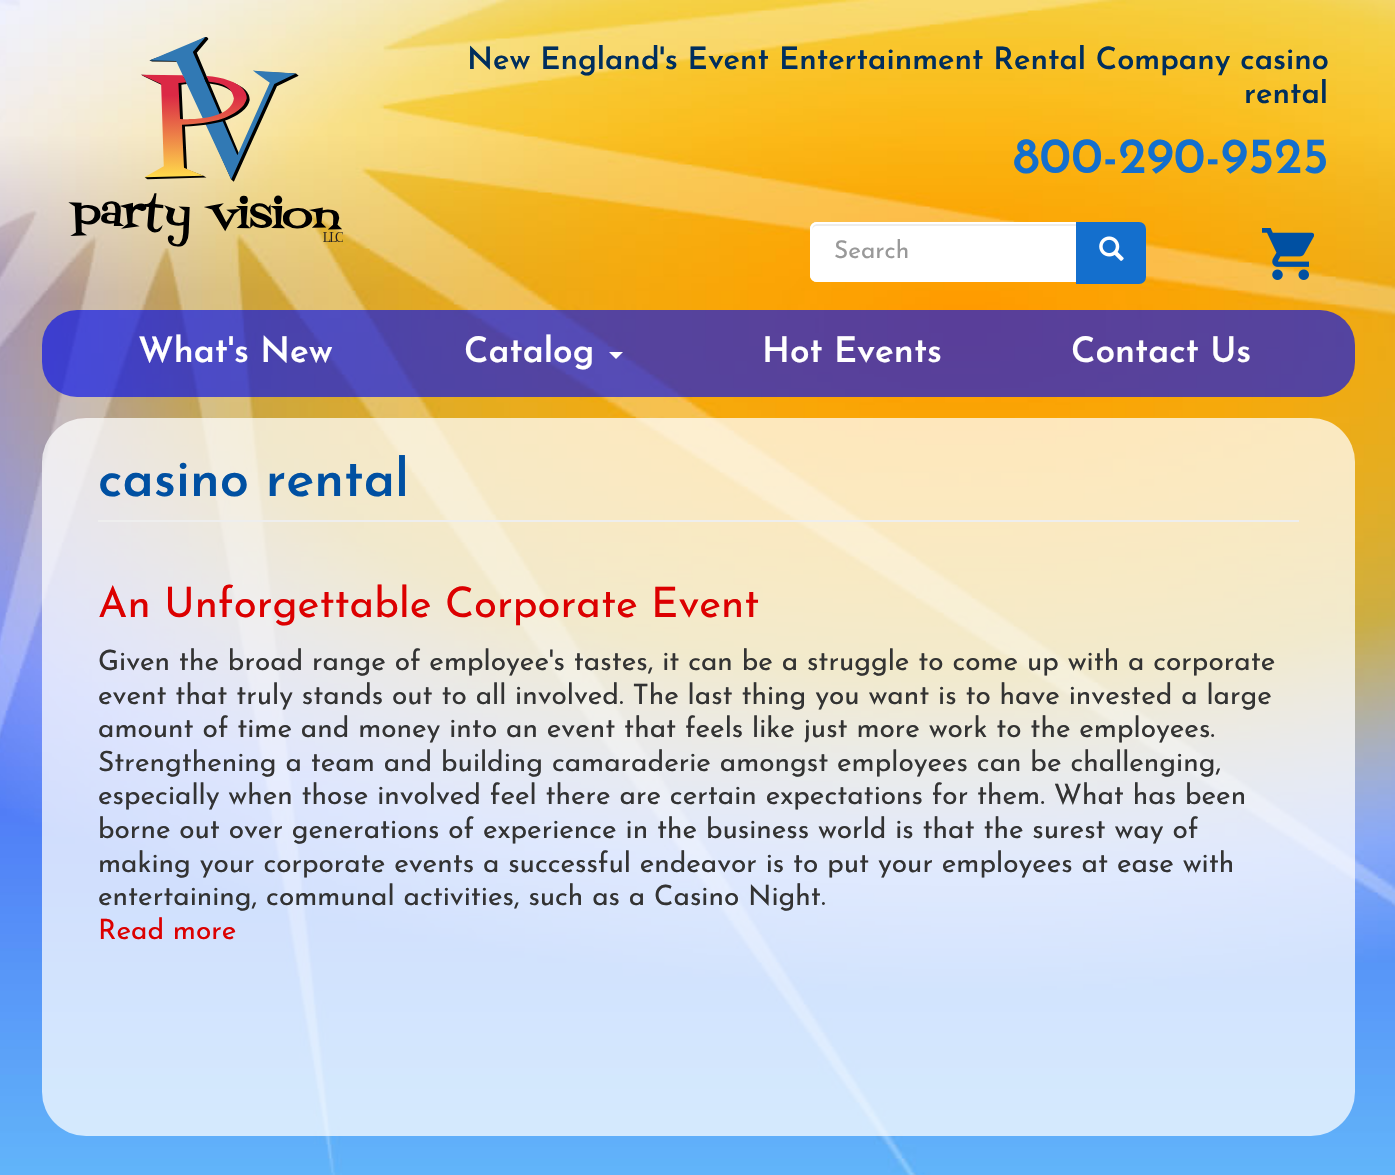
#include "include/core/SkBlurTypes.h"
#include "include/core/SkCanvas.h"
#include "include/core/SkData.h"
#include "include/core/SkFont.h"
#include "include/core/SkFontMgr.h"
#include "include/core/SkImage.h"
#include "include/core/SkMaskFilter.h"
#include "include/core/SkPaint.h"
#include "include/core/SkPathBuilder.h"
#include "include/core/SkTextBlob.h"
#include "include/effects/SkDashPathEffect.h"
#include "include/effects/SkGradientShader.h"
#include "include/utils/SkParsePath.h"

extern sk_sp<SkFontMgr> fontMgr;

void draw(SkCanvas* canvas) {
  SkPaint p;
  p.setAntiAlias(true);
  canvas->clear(SK_ColorWHITE);
  canvas->drawImageRect(SkImages::DeferredFromEncodedData(SkData::MakeFromFileName("images/1.png")), SkRect::MakeLTRB(0, 0, 1395, 1175), SkSamplingOptions());
  canvas->drawImageRect(SkImages::DeferredFromEncodedData(SkData::MakeFromFileName("images/2.png")), SkRect::MakeLTRB(68, 37, 343, 247), SkSamplingOptions());
  p.setColor(SK_ColorWHITE);
  canvas->drawPath(SkPathBuilder().moveTo(817, 222).lineTo(1078, 222).lineTo(1078, 282).lineTo(817, 282).cubicTo(813, 282, 810, 279, 810, 275).lineTo(810, 229).cubicTo(810, 225, 813, 222, 817, 222).close().detach(), p);
  p.setColor(SkColorSetRGB(236, 236, 236));
  canvas->drawPath(SkPathBuilder().moveTo(817, 226).lineTo(1076, 226).lineTo(1076, 224).lineTo(817, 224).cubicTo(813, 224, 812, 228, 812, 231).cubicTo(812, 228, 814, 226, 817, 226).close().detach(), p);
  p.setStyle(SkPaint::kStroke_Style);
  p.setStrokeWidth(2);
  p.setColor(SK_ColorWHITE);
  canvas->drawPath(SkPathBuilder().moveTo(817, 223).lineTo(1077, 223).lineTo(1077, 281).lineTo(817, 281).cubicTo(813.5f, 281, 811, 278.5f, 811, 275).lineTo(811, 229).cubicTo(811, 225.5f, 813.5f, 223, 817, 223).close().detach(), p);
  p.setStyle(SkPaint::kFill_Style);
  p.setColor(SkColorSetRGB(20, 111, 205));
  canvas->drawPath(SkPathBuilder().moveTo(1077, 223).lineTo(1139, 223).cubicTo(1142.5f, 223, 1145, 225.5f, 1145, 229).lineTo(1145, 277).cubicTo(1145, 280.5f, 1142.5f, 283, 1139, 283).lineTo(1077, 283).close().detach(), p);
  p.setStyle(SkPaint::kStroke_Style);
  canvas->drawPath(SkPathBuilder().moveTo(1077, 223).lineTo(1139, 223).cubicTo(1142.5f, 223, 1145, 225.5f, 1145, 229).lineTo(1145, 277).cubicTo(1145, 280.5f, 1142.5f, 283, 1139, 283).lineTo(1077, 283).close().detach(), p);
  canvas->drawImageRect(SkImages::DeferredFromEncodedData(SkData::MakeFromFileName("images/3.png")), SkRect::MakeLTRB(1099, 236, 1124, 261), SkSamplingOptions());
  canvas->drawImageRect(SkImages::DeferredFromEncodedData(SkData::MakeFromFileName("images/4.png")), SkRect::MakeLTRB(1262, 228, 1314, 280), SkSamplingOptions());
  p.setStyle(SkPaint::kFill_Style);
  p.setColor(SkColorSetARGB(166, 0, 13, 235));
  canvas->drawRoundRect(SkRect::MakeLTRB(42, 310, 1355, 397), 35, 35, p);
  p.setColor(SK_ColorWHITE);
  canvas->drawPath(SkPathBuilder().moveTo(609, 352).lineTo(623, 352).lineTo(616, 359).close().detach(), p);
  p.setColor(SkColorSetARGB(186, 255, 255, 255));
  canvas->drawRoundRect(SkRect::MakeLTRB(42, 418, 1355, 1136), 44, 44, p);
  p.setColor(SkColorSetRGB(238, 238, 238));
  canvas->drawRect(SkRect::MakeLTRB(98, 520, 1299, 522), p);
  SkFont font1(fontMgr->matchFamilyStyle("Josefin Sans", SkFontStyle(600, SkFontStyle::kNormal_Width, SkFontStyle::kUpright_Slant)), 30.8f);
  font1.setSubpixel(true);
  p.setColor(SkColorSetRGB(0, 46, 93));
  canvas->drawString("New England's Event Entertainment Rental Company casino", 467, 69, font1, p);
  canvas->drawString("rental", 1244, 103, font1, p);
  SkFont font2(fontMgr->matchFamilyStyle("Josefin Sans", SkFontStyle(600, SkFontStyle::kNormal_Width, SkFontStyle::kUpright_Slant)), 50.5f);
  font2.setSubpixel(true);
  p.setColor(SkColorSetRGB(20, 111, 205));
  canvas->drawString("800-290-9525", 1013, 173, font2, p);
  SkFont font3(fontMgr->matchFamilyStyle("Josefin Sans", SkFontStyle::Normal()), 24.5f);
  font3.setSubpixel(true);
  p.setColor(SkColorSetRGB(153, 153, 153));
  canvas->drawString("Search", 834, 258, font3, p);
  SkFont font4(fontMgr->matchFamilyStyle("Josefin Sans", SkFontStyle(600, SkFontStyle::kNormal_Width, SkFontStyle::kUpright_Slant)), 35.25f);
  font4.setSubpixel(true);
  p.setColor(SK_ColorWHITE);
  canvas->drawString("What's New", 138, 362, font4, p);
  canvas->drawString("Catalog", 464, 362, font4, p);
  canvas->drawString("Hot Events", 762, 362, font4, p);
  canvas->drawString("Contact Us", 1071, 362, font4, p);
  SkFont font5(fontMgr->matchFamilyStyle("Josefin Sans", SkFontStyle(600, SkFontStyle::kNormal_Width, SkFontStyle::kUpright_Slant)), 52.5f);
  font5.setSubpixel(true);
  p.setColor(SkColorSetRGB(0, 80, 162));
  canvas->drawString("casino rental", 98, 496, font5, p);
  SkFont font6(fontMgr->matchFamilyStyle("Josefin Sans", SkFontStyle::Normal()), 42);
  font6.setSubpixel(true);
  p.setColor(SkColorSetRGB(220, 0, 0));
  canvas->drawString("An Unforgettable Corporate Event", 98, 617, font6, p);
  SkFont font7(fontMgr->matchFamilyStyle("Josefin Sans", SkFontStyle::Normal()), 28);
  font7.setSubpixel(true);
  p.setColor(SkColorSetRGB(51, 51, 51));
  canvas->drawString("Given the broad range of employee's tastes, it can be a struggle to come up with a corporate", 98, 670, font7, p);
  canvas->drawString("event that truly stands out to all involved. The last thing you want is to have invested a large", 98, 704, font7, p);
  canvas->drawString("amount of time and money into an event that feels like just more work to the employees.", 98, 737, font7, p);
  canvas->drawString("Strengthening a team and building camaraderie amongst employees can be challenging,", 98, 771, font7, p);
  canvas->drawString("especially when those involved feel there are certain expectations for them. What has been", 98, 804, font7, p);
  canvas->drawString("borne out over generations of experience in the business world is that the surest way of", 98, 838, font7, p);
  canvas->drawString("making your corporate events a successful endeavor is to put your employees at ease with", 98, 872, font7, p);
  canvas->drawString("entertaining, communal activities, such as a Casino Night.", 98, 905, font7, p);
  p.setColor(SkColorSetRGB(220, 0, 0));
  canvas->drawString("Read more", 98, 939, font7, p);
}
